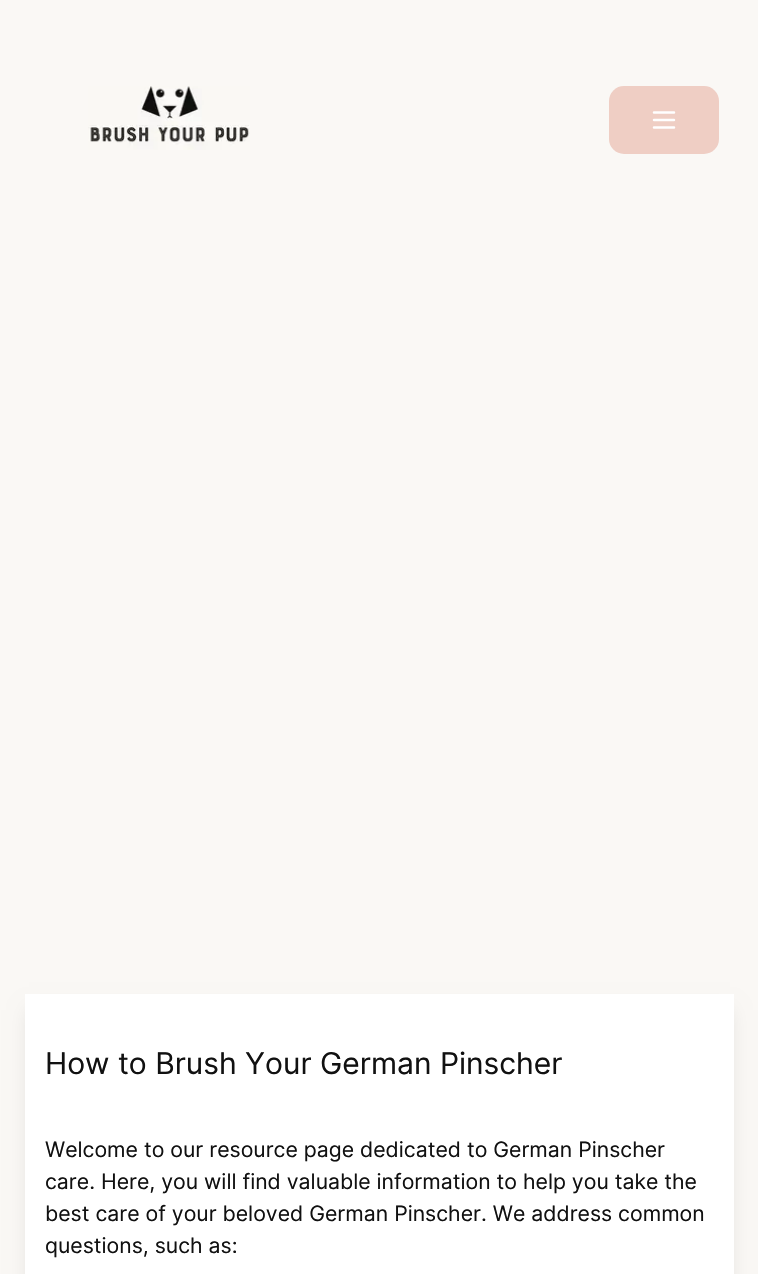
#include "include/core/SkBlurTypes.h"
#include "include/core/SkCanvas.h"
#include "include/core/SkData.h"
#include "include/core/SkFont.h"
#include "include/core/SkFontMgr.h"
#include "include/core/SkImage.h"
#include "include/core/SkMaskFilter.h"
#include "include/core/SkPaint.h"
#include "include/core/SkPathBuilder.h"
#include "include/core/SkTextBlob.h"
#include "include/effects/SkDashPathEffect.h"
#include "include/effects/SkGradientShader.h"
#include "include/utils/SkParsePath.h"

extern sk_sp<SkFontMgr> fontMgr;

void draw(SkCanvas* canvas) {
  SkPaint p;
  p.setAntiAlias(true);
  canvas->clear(SkColorSetRGB(250, 248, 245));
  canvas->drawImageRect(SkImages::DeferredFromEncodedData(SkData::MakeFromFileName("images/1.png")), SkRect::MakeLTRB(88, 86, 250, 150), SkSamplingOptions());
  p.setColor(SkColorSetRGB(239, 206, 196));
  canvas->drawRoundRect(SkRect::MakeLTRB(609, 86, 719, 154), 15, 15, p);
  p.setStyle(SkPaint::kStroke_Style);
  p.setStrokeWidth(2.5f);
  p.setStrokeCap(SkPaint::kRound_Cap);
  p.setStrokeJoin(SkPaint::kRound_Join);
  p.setColor(SK_ColorWHITE);
  canvas->drawPath(SkPathBuilder().moveTo(654, 112.5f).lineTo(674, 112.5f).moveTo(654, 120).lineTo(674, 120).moveTo(654, 127.5f).lineTo(674, 127.5f).detach(), p);
  p.setStyle(SkPaint::kFill_Style);
  p.setColor(SkColorSetARGB(26, 0, 0, 0));
  p.setMaskFilter(SkMaskFilter::MakeBlur(kNormal_SkBlurStyle, 9.5f));
  canvas->drawRect(SkRect::MakeLTRB(29, 1010, 730, 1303), p);
  p.setMaskFilter(nullptr);
  p.setColor(SK_ColorWHITE);
  canvas->drawRect(SkRect::MakeLTRB(25, 994, 734, 1274), p);
  SkFont font1(fontMgr->matchFamilyStyle("Inter", SkFontStyle::Normal()), 30);
  font1.setSubpixel(true);
  p.setColor(SkColorSetRGB(17, 17, 17));
  canvas->drawString("How to Brush Your German Pinscher", 45, 1074, font1, p);
  SkFont font2(fontMgr->matchFamilyStyle("Inter", SkFontStyle::Normal()), 21.25f);
  font2.setSubpixel(true);
  canvas->drawString("Welcome to our resource page dedicated to German Pinscher", 45, 1157, font2, p);
  canvas->drawString("care. Here, you will find valuable information to help you take the", 45, 1189, font2, p);
  canvas->drawString("best care of your beloved German Pinscher. We address common", 45, 1221, font2, p);
  canvas->drawString("questions, such as:", 45, 1253, font2, p);
}
